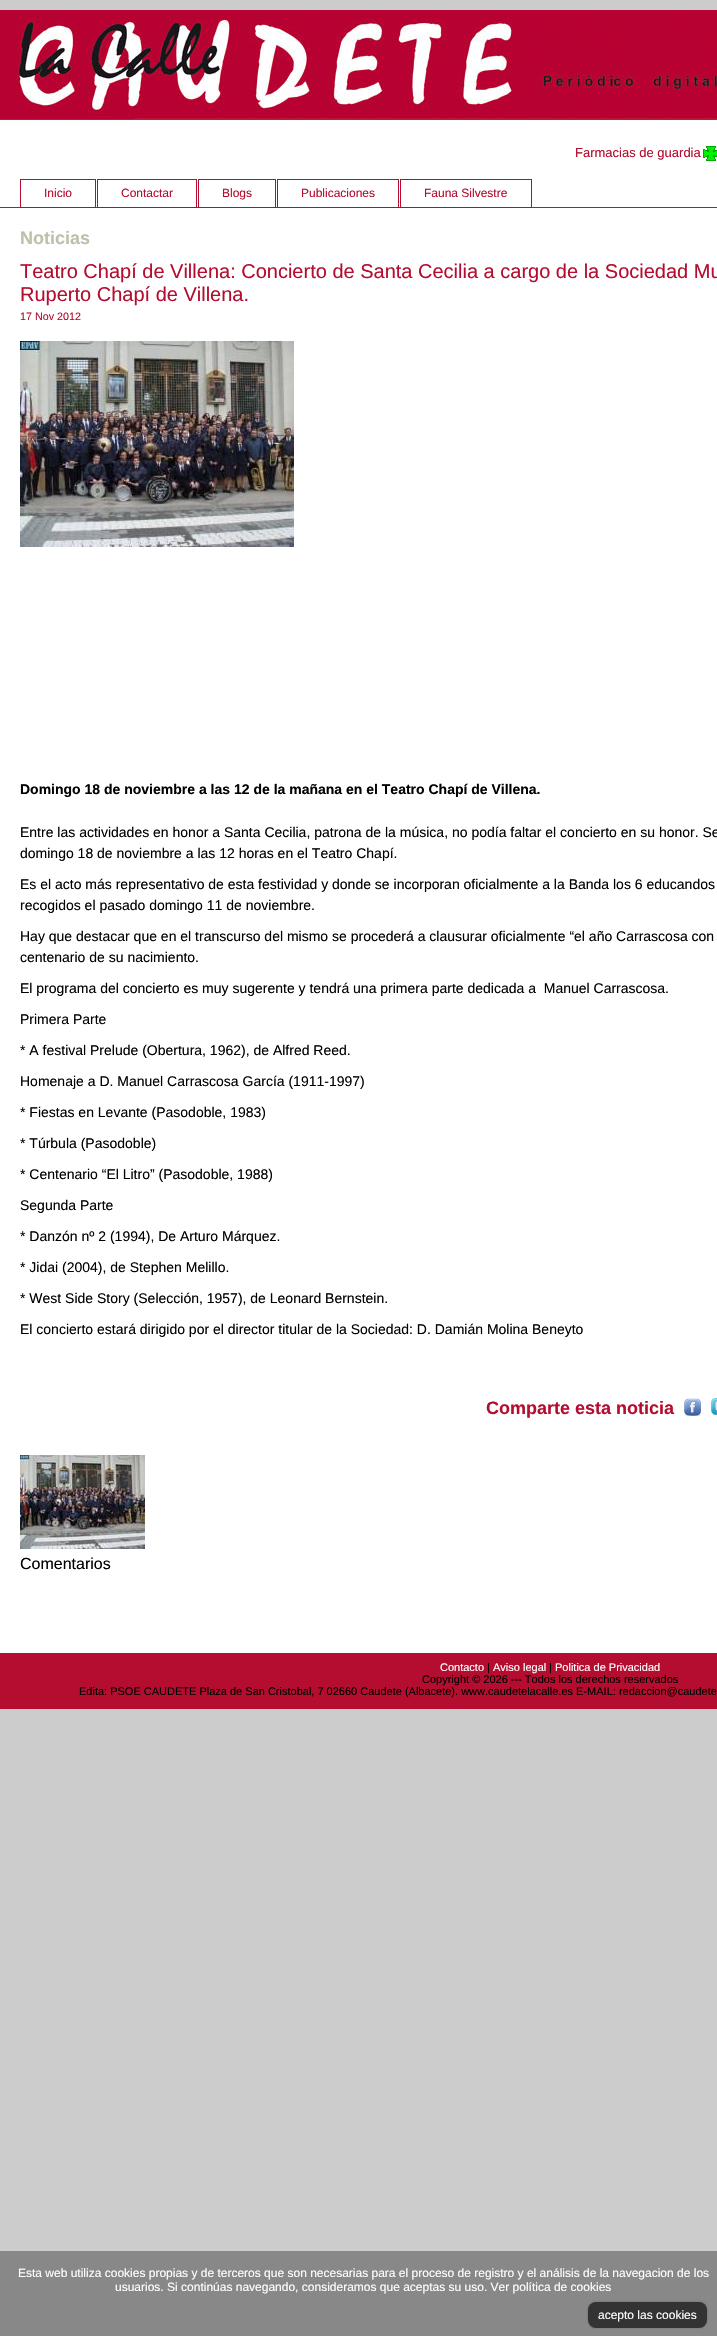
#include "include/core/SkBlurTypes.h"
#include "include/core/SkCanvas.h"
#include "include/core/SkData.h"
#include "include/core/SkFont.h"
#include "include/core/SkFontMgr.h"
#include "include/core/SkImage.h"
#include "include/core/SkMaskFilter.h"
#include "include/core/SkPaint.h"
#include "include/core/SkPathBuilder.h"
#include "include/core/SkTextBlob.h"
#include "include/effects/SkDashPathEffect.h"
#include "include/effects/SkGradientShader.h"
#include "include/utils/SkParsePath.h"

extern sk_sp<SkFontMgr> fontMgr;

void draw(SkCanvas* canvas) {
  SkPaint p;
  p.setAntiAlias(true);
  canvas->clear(SkColorSetRGB(204, 204, 204));
  p.setColor(SK_ColorWHITE);
  canvas->drawRect(SkRect::MakeLTRB(0, 120, 717, 1653), p);
  p.setColor(SkColorSetRGB(174, 28, 50));
  canvas->drawRect(SkRect::MakeLTRB(0, 207, 717, 208), p);
  canvas->drawImageRect(SkImages::DeferredFromEncodedData(SkData::MakeFromFileName("images/1.png")), SkRect::MakeLTRB(0, 10, 717, 120), SkSamplingOptions());
  canvas->drawImageRect(SkImages::DeferredFromEncodedData(SkData::MakeFromFileName("images/2.png")), SkRect::MakeLTRB(703, 146, 717, 161), SkSamplingOptions());
  p.setStyle(SkPaint::kStroke_Style);
  p.setStrokeWidth(1);
  p.setColor(SkColorSetRGB(181, 13, 47));
  canvas->drawRect(SkRect::MakeLTRB(20.5f, 179.5f, 95.5f, 207.5f), p);
  canvas->drawRect(SkRect::MakeLTRB(97.5f, 179.5f, 196.5f, 207.5f), p);
  canvas->drawRect(SkRect::MakeLTRB(198.5f, 179.5f, 275.5f, 207.5f), p);
  canvas->drawRect(SkRect::MakeLTRB(277.5f, 179.5f, 398.5f, 207.5f), p);
  canvas->drawRect(SkRect::MakeLTRB(400.5f, 179.5f, 531.5f, 207.5f), p);
  canvas->drawImageRect(SkImages::DeferredFromEncodedData(SkData::MakeFromFileName("images/3.png")), SkRect::MakeLTRB(20, 341, 294, 547), SkSamplingOptions());
  canvas->drawImageRect(SkImages::DeferredFromEncodedData(SkData::MakeFromFileName("images/4.png")), SkRect::MakeLTRB(684, 1398, 701, 1416), SkSamplingOptions());
  canvas->drawImageRect(SkImages::DeferredFromEncodedData(SkData::MakeFromFileName("images/5.png")), SkRect::MakeLTRB(711, 1398, 717, 1415), SkSamplingOptions());
  canvas->drawImageRect(SkImages::DeferredFromEncodedData(SkData::MakeFromFileName("images/6.png")), SkRect::MakeLTRB(20, 1455, 145, 1549), SkSamplingOptions());
  p.setStyle(SkPaint::kFill_Style);
  canvas->drawRect(SkRect::MakeLTRB(0, 1653, 717, 1709), p);
  p.setColor(SkColorSetRGB(136, 136, 136));
  canvas->drawRect(SkRect::MakeLTRB(0, 2251, 717, 2336), p);
  p.setColor(SkColorSetARGB(64, 0, 0, 0));
  p.setMaskFilter(SkMaskFilter::MakeBlur(kNormal_SkBlurStyle, 1));
  canvas->drawRoundRect(SkRect::MakeLTRB(588, 2302, 707, 2328), 8, 8, p);
  p.setMaskFilter(nullptr);
  p.setColor(SkColorSetRGB(51, 51, 51));
  canvas->drawRoundRect(SkRect::MakeLTRB(588, 2302, 707, 2328), 8, 8, p);
  SkFont font1(fontMgr->matchFamilyStyle("Liberation Sans", SkFontStyle::Normal()), 13);
  font1.setSubpixel(true);
  p.setColor(SkColorSetRGB(181, 13, 47));
  canvas->drawString("Farmacias de guardia", 575, 157, font1, p);
  SkFont font2(fontMgr->matchFamilyStyle("Liberation Sans", SkFontStyle::Normal()), 12);
  font2.setSubpixel(true);
  canvas->drawString("Inicio", 44, 197, font2, p);
  canvas->drawString("Contactar", 121, 197, font2, p);
  canvas->drawString("Blogs", 222, 197, font2, p);
  canvas->drawString("Publicaciones", 301, 197, font2, p);
  canvas->drawString("Fauna Silvestre", 424, 197, font2, p);
  SkFont font3(fontMgr->matchFamilyStyle("Liberation Sans", SkFontStyle::Bold()), 18);
  font3.setSubpixel(true);
  p.setColor(SkColorSetRGB(191, 191, 171));
  canvas->drawString("Noticias", 20, 244, font3, p);
  SkFont font4(fontMgr->matchFamilyStyle("Liberation Sans", SkFontStyle::Normal()), 20);
  font4.setSubpixel(true);
  p.setColor(SkColorSetRGB(181, 13, 47));
  canvas->drawString("Teatro Chapí de Villena: Concierto de Santa Cecilia a cargo de la Sociedad Mu", 20, 278, font4, p);
  canvas->drawString("Ruperto Chapí de Villena.", 20, 301, font4, p);
  SkFont font5(fontMgr->matchFamilyStyle("Liberation Sans", SkFontStyle::Normal()), 10.75f);
  font5.setSubpixel(true);
  canvas->drawString("17 Nov 2012", 20, 320, font5, p);
  SkFont font6(fontMgr->matchFamilyStyle("Liberation Sans", SkFontStyle::Bold()), 14);
  font6.setSubpixel(true);
  p.setColor(SK_ColorBLACK);
  canvas->drawString("Domingo 18 de noviembre a las 12 de la mañana en el Teatro Chapí de Villena.", 20, 794, font6, p);
  SkFont font7(fontMgr->matchFamilyStyle("Liberation Sans", SkFontStyle::Normal()), 14);
  font7.setSubpixel(true);
  canvas->drawString("Entre las actividades en honor a Santa Cecilia, patrona de la música, no podía faltar el concierto en su honor. Se", 20, 837, font7, p);
  canvas->drawString("domingo 18 de noviembre a las 12 horas en el Teatro Chapí.", 20, 858, font7, p);
  canvas->drawString("Es el acto más representativo de esta festividad y donde se incorporan oficialmente a la Banda los 6 educandos", 20, 889, font7, p);
  canvas->drawString("recogidos el pasado domingo 11 de noviembre.", 20, 910, font7, p);
  canvas->drawString("Hay que destacar que en el transcurso del mismo se procederá a clausurar oficialmente “el año Carrascosa con", 20, 941, font7, p);
  canvas->drawString("centenario de su nacimiento.", 20, 962, font7, p);
  canvas->drawString("El programa del concierto es muy sugerente y tendrá una primera parte dedicada a  Manuel Carrascosa.", 20, 993, font7, p);
  canvas->drawString("Primera Parte", 20, 1024, font7, p);
  canvas->drawString("* A festival Prelude (Obertura, 1962), de Alfred Reed.", 20, 1055, font7, p);
  canvas->drawString("Homenaje a D. Manuel Carrascosa García (1911-1997)", 20, 1086, font7, p);
  canvas->drawString("* Fiestas en Levante (Pasodoble, 1983)", 20, 1117, font7, p);
  canvas->drawString("* Túrbula (Pasodoble)", 20, 1148, font7, p);
  canvas->drawString("* Centenario “El Litro” (Pasodoble, 1988)", 20, 1179, font7, p);
  canvas->drawString("Segunda Parte", 20, 1210, font7, p);
  canvas->drawString("* Danzón nº 2 (1994), De Arturo Márquez.", 20, 1241, font7, p);
  canvas->drawString("* Jidai (2004), de Stephen Melillo.", 20, 1272, font7, p);
  canvas->drawString("* West Side Story (Selección, 1957), de Leonard Bernstein.", 20, 1303, font7, p);
  canvas->drawString("El concierto estará dirigido por el director titular de la Sociedad: D. Damián Molina Beneyto", 20, 1334, font7, p);
  p.setColor(SkColorSetRGB(181, 13, 47));
  canvas->drawString("Comparte esta noticia", 486, 1414, font3, p);
  SkFont font8(fontMgr->matchFamilyStyle("Liberation Sans", SkFontStyle::Normal()), 16);
  font8.setSubpixel(true);
  p.setColor(SK_ColorBLACK);
  canvas->drawString("Comentarios", 20, 1569, font8, p);
  SkFont font9(fontMgr->matchFamilyStyle("Liberation Sans", SkFontStyle::Normal()), 11);
  font9.setSubpixel(true);
  p.setColor(SK_ColorWHITE);
  canvas->drawString("Contacto", 440, 1671, font9, p);
  p.setColor(SK_ColorBLACK);
  canvas->drawString("|", 487, 1671, font9, p);
  p.setColor(SK_ColorWHITE);
  canvas->drawString("Aviso legal", 493, 1671, font9, p);
  p.setColor(SK_ColorBLACK);
  canvas->drawString("|", 549, 1671, font9, p);
  p.setColor(SK_ColorWHITE);
  canvas->drawString("Politica de Privacidad", 555, 1671, font9, p);
  p.setColor(SK_ColorBLACK);
  canvas->drawString("Copyright © 2026 --- Todos los derechos reservados", 422, 1683, font9, p);
  canvas->drawString("Edita: PSOE CAUDETE Plaza de San Cristobal, 7 02660 Caudete (Albacete). www.caudetelacalle.es E-MAIL: redaccion@caudete", 79, 1695, font9, p);
  p.setColor(SK_ColorWHITE);
  canvas->drawString("Esta web utiliza cookies propias y de terceros que son necesarias para el proceso de registro y el análisis de la navegacion de los", 18, 2277, font2, p);
  canvas->drawString("usuarios. Si continúas navegando, consideramos que aceptas su uso. Ver política de cookies", 115, 2291, font2, p);
  canvas->drawString("acepto las cookies", 598, 2319, font2, p);
}
